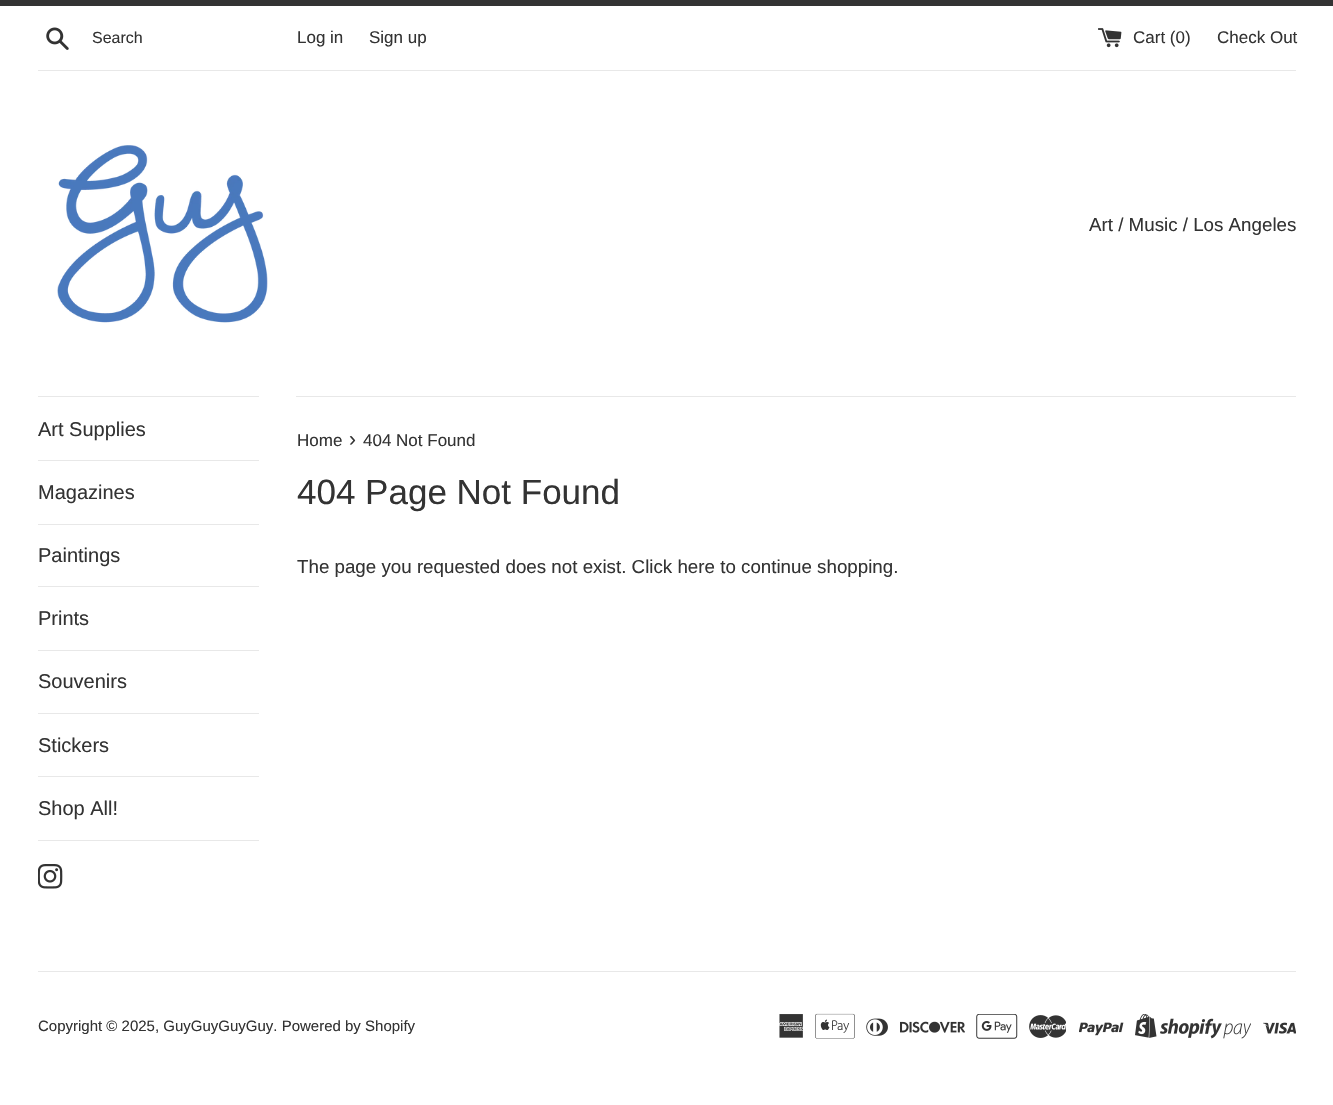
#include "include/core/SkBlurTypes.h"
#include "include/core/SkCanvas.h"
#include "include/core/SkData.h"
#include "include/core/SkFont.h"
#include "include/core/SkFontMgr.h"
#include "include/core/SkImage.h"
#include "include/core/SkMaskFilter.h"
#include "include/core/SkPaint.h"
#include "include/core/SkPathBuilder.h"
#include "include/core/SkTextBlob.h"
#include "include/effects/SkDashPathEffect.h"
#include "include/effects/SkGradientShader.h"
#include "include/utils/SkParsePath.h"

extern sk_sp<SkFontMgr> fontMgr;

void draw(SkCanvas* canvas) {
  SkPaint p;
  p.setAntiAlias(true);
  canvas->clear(SK_ColorWHITE);
  p.setColor(SkColorSetRGB(51, 51, 51));
  canvas->drawRect(SkRect::MakeLTRB(0, 0, 1333, 6), p);
  canvas->drawImageRect(SkImages::DeferredFromEncodedData(SkData::MakeFromFileName("images/1.png")), SkRect::MakeLTRB(46, 27, 69, 50), SkSamplingOptions());
  canvas->drawImageRect(SkImages::DeferredFromEncodedData(SkData::MakeFromFileName("images/2.png")), SkRect::MakeLTRB(1098, 28, 1122, 48), SkSamplingOptions());
  p.setColor(SkColorSetRGB(232, 232, 232));
  canvas->drawRect(SkRect::MakeLTRB(38, 70, 1296, 71), p);
  canvas->drawImageRect(SkImages::DeferredFromEncodedData(SkData::MakeFromFileName("images/3.png")), SkRect::MakeLTRB(57, 145, 268, 323), SkSamplingOptions());
  canvas->drawRect(SkRect::MakeLTRB(38, 396, 259, 397), p);
  canvas->drawRect(SkRect::MakeLTRB(38, 460, 259, 461), p);
  canvas->drawRect(SkRect::MakeLTRB(38, 524, 259, 525), p);
  canvas->drawRect(SkRect::MakeLTRB(38, 586, 259, 587), p);
  canvas->drawRect(SkRect::MakeLTRB(38, 650, 259, 651), p);
  canvas->drawRect(SkRect::MakeLTRB(38, 713, 259, 714), p);
  canvas->drawRect(SkRect::MakeLTRB(38, 776, 259, 777), p);
  canvas->drawRect(SkRect::MakeLTRB(38, 840, 259, 841), p);
  canvas->drawImageRect(SkImages::DeferredFromEncodedData(SkData::MakeFromFileName("images/4.png")), SkRect::MakeLTRB(38, 864, 63, 889), SkSamplingOptions());
  canvas->drawRect(SkRect::MakeLTRB(296, 396, 1296, 397), p);
  canvas->drawRect(SkRect::MakeLTRB(38, 971, 1296, 972), p);
  canvas->drawImageRect(SkImages::DeferredFromEncodedData(SkData::MakeFromFileName("images/5.png")), SkRect::MakeLTRB(779, 1014, 803, 1038), SkSamplingOptions());
  canvas->drawImageRect(SkImages::DeferredFromEncodedData(SkData::MakeFromFileName("images/6.png")), SkRect::MakeLTRB(815, 1013, 855, 1039), SkSamplingOptions());
  canvas->drawImageRect(SkImages::DeferredFromEncodedData(SkData::MakeFromFileName("images/7.png")), SkRect::MakeLTRB(866, 1018, 888, 1036), SkSamplingOptions());
  canvas->drawImageRect(SkImages::DeferredFromEncodedData(SkData::MakeFromFileName("images/8.png")), SkRect::MakeLTRB(900, 1021, 965, 1033), SkSamplingOptions());
  canvas->drawImageRect(SkImages::DeferredFromEncodedData(SkData::MakeFromFileName("images/9.png")), SkRect::MakeLTRB(976, 1014, 1018, 1039), SkSamplingOptions());
  canvas->drawImageRect(SkImages::DeferredFromEncodedData(SkData::MakeFromFileName("images/10.png")), SkRect::MakeLTRB(1029, 1015, 1066, 1038), SkSamplingOptions());
  canvas->drawImageRect(SkImages::DeferredFromEncodedData(SkData::MakeFromFileName("images/11.png")), SkRect::MakeLTRB(1079, 1022, 1124, 1036), SkSamplingOptions());
  canvas->drawImageRect(SkImages::DeferredFromEncodedData(SkData::MakeFromFileName("images/12.png")), SkRect::MakeLTRB(1135, 1014, 1251, 1039), SkSamplingOptions());
  canvas->drawImageRect(SkImages::DeferredFromEncodedData(SkData::MakeFromFileName("images/13.png")), SkRect::MakeLTRB(1263, 1022, 1296, 1034), SkSamplingOptions());
  SkFont font1(fontMgr->matchFamilyStyle("Liberation Sans", SkFontStyle::Normal()), 16);
  font1.setSubpixel(true);
  p.setColor(SkColorSetRGB(51, 51, 51));
  canvas->drawString("Search", 92, 43, font1, p);
  SkFont font2(fontMgr->matchFamilyStyle("Liberation Sans", SkFontStyle::Normal()), 17);
  font2.setSubpixel(true);
  canvas->drawString("Log in", 297, 43, font2, p);
  canvas->drawString("Sign up", 369, 43, font2, p);
  canvas->drawString("Cart (0)", 1133, 43, font2, p);
  canvas->drawString("Check Out", 1217, 43, font2, p);
  SkFont font3(fontMgr->matchFamilyStyle("Liberation Sans", SkFontStyle::Normal()), 18.75f);
  font3.setSubpixel(true);
  canvas->drawString("Art / Music / Los Angeles", 1089, 231, font3, p);
  SkFont font4(fontMgr->matchFamilyStyle("Liberation Sans", SkFontStyle::Normal()), 20);
  font4.setSubpixel(true);
  canvas->drawString("Art Supplies", 38, 436, font4, p);
  canvas->drawString("Magazines", 38, 499, font4, p);
  canvas->drawString("Paintings", 38, 562, font4, p);
  canvas->drawString("Prints", 38, 625, font4, p);
  canvas->drawString("Souvenirs", 38, 688, font4, p);
  canvas->drawString("Stickers", 38, 752, font4, p);
  canvas->drawString("Shop All!", 38, 815, font4, p);
  canvas->drawString("Home", 297, 446, font2, p);
  SkFont font5(fontMgr->matchFamilyStyle("Liberation Sans", SkFontStyle::Normal()), 21);
  font5.setSubpixel(true);
  canvas->drawString("›", 349, 446, font5, p);
  canvas->drawString("404 Not Found", 363, 446, font2, p);
  SkFont font6(fontMgr->matchFamilyStyle("Liberation Sans", SkFontStyle::Normal()), 35);
  font6.setSubpixel(true);
  canvas->drawString("404 Page Not Found", 297, 504, font6, p);
  canvas->drawString("The page you requested does not exist. Click here to continue shopping.", 297, 573, font3, p);
  SkFont font7(fontMgr->matchFamilyStyle("Liberation Sans", SkFontStyle::Normal()), 15);
  font7.setSubpixel(true);
  canvas->drawString("Copyright © 2025, GuyGuyGuyGuy. Powered by Shopify", 38, 1031, font7, p);
}
